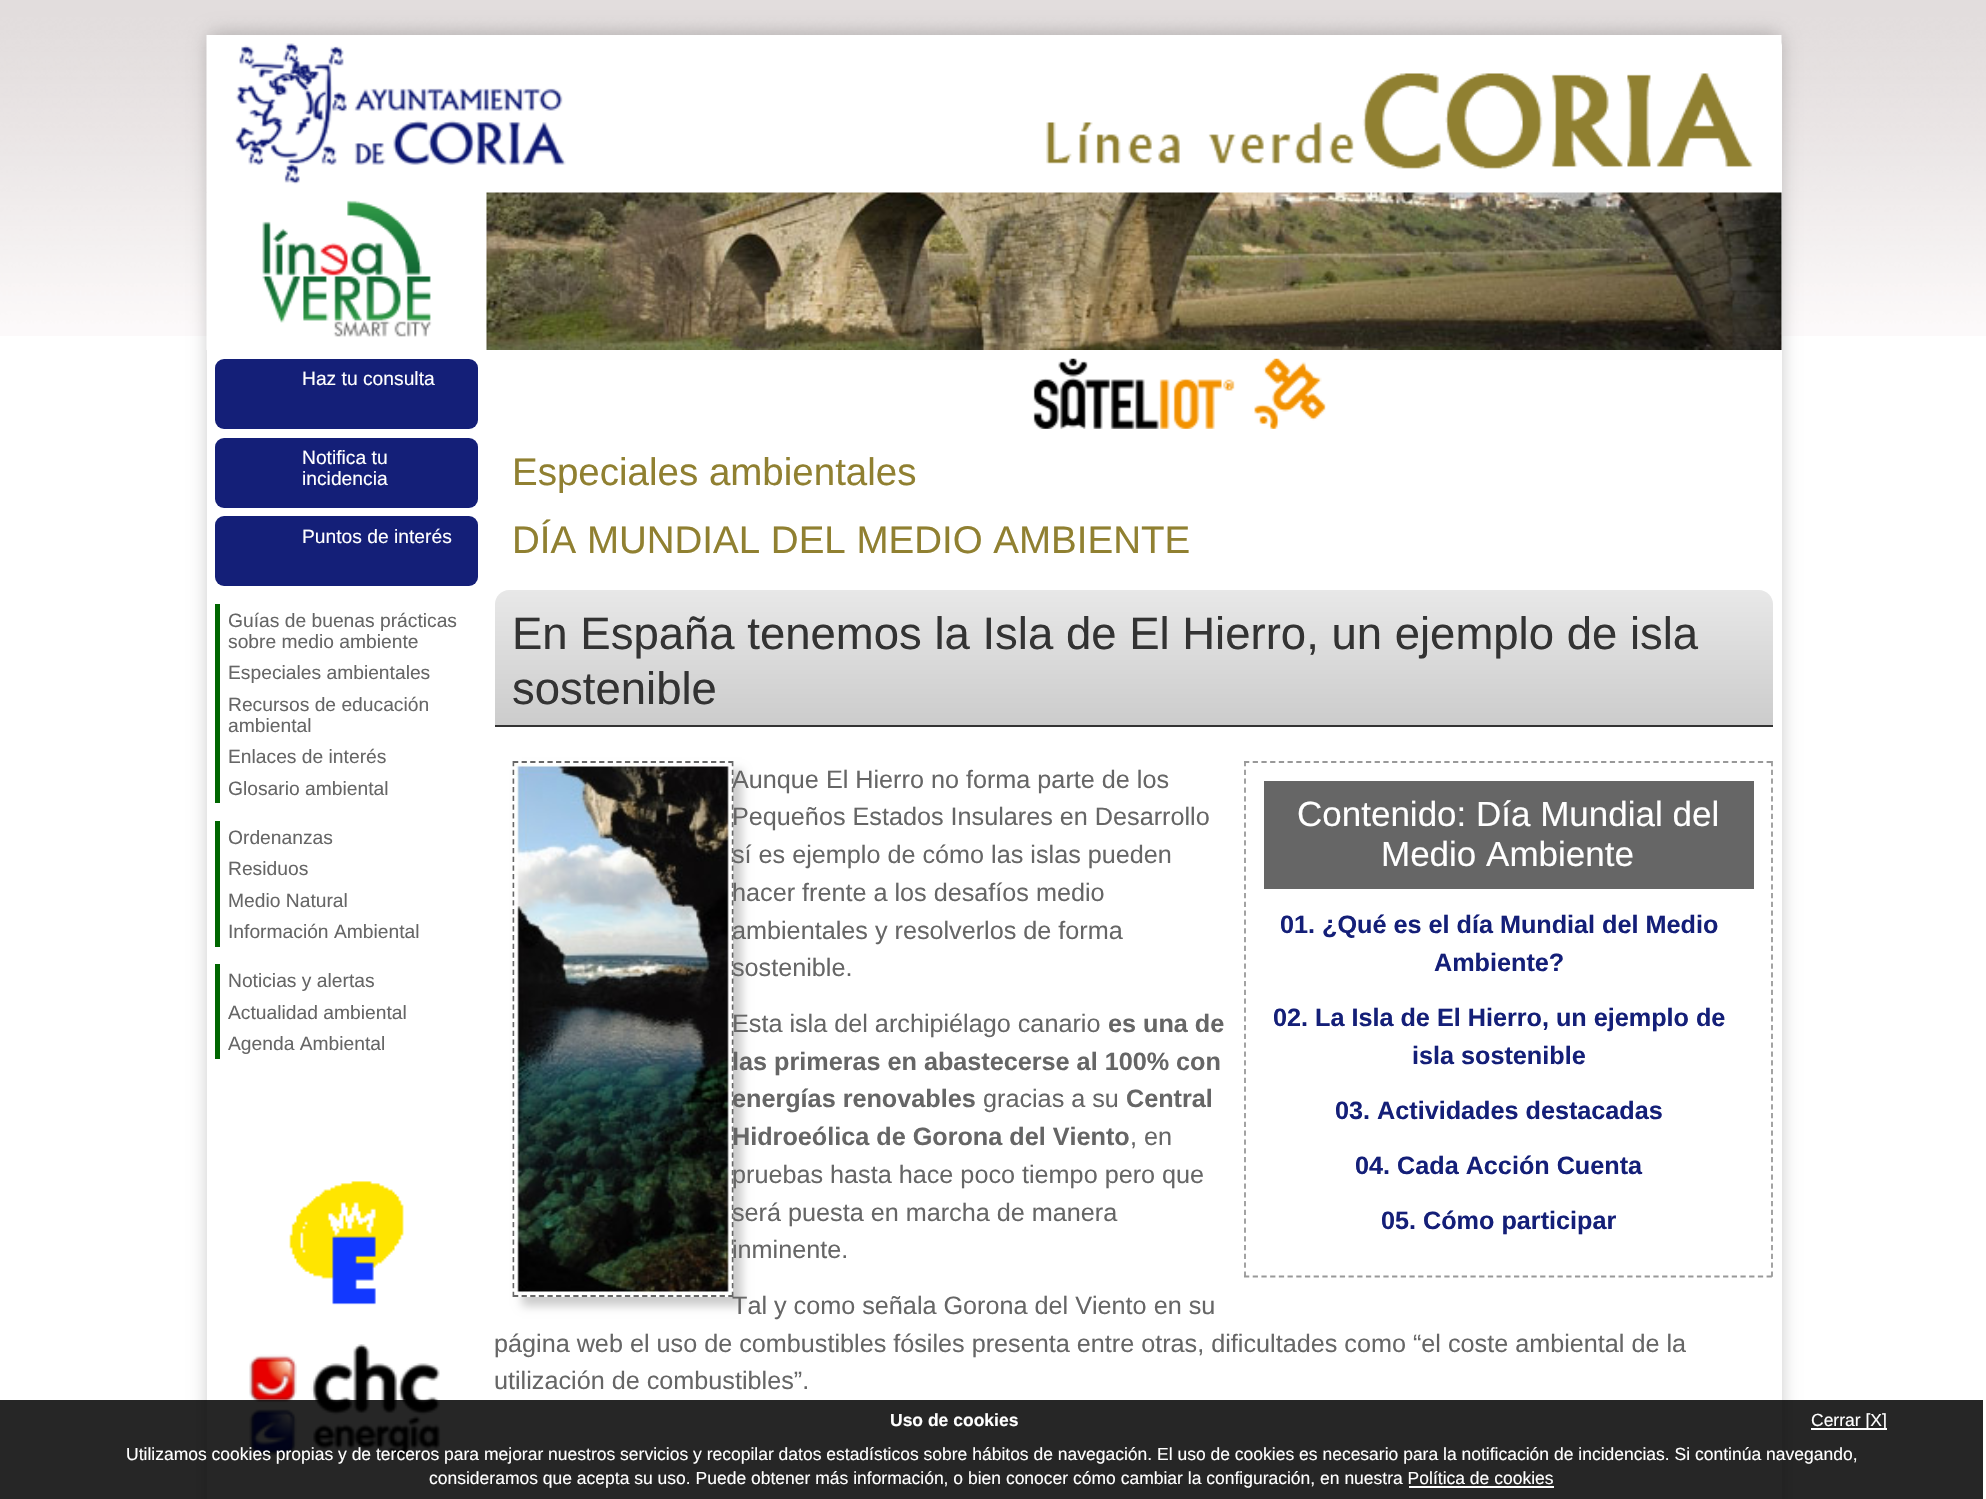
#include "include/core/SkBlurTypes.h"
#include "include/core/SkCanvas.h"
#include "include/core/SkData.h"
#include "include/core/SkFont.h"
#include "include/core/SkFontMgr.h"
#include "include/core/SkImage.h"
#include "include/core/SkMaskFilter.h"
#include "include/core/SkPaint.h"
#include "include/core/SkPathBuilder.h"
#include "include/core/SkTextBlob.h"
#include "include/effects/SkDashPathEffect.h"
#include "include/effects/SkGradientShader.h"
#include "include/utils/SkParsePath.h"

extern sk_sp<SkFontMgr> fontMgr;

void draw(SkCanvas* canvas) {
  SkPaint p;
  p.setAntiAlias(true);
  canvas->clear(SK_ColorWHITE);
  canvas->drawImageRect(SkImages::DeferredFromEncodedData(SkData::MakeFromFileName("images/1.png")), SkRect::MakeLTRB(0, 0, 1986, 336), SkSamplingOptions());
  p.setColor(SkColorSetARGB(51, 0, 0, 0));
  p.setMaskFilter(SkMaskFilter::MakeBlur(kNormal_SkBlurStyle, 9));
  canvas->drawRoundRect(SkRect::MakeLTRB(207, 32, 1782, 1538), 12, 12, p);
  p.setMaskFilter(nullptr);
  p.setColor(SK_ColorWHITE);
  canvas->drawRoundRect(SkRect::MakeLTRB(207, 35, 1782, 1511), 12, 12, p);
  canvas->drawImageRect(SkImages::DeferredFromEncodedData(SkData::MakeFromFileName("images/2.png")), SkRect::MakeLTRB(206, 35, 1782, 193), SkSamplingOptions());
  canvas->drawImageRect(SkImages::DeferredFromEncodedData(SkData::MakeFromFileName("images/3.png")), SkRect::MakeLTRB(206, 192, 432, 350), SkSamplingOptions());
  canvas->drawImageRect(SkImages::DeferredFromEncodedData(SkData::MakeFromFileName("images/4.png")), SkRect::MakeLTRB(486, 192, 1782, 350), SkSamplingOptions());
  canvas->drawImageRect(SkImages::DeferredFromEncodedData(SkData::MakeFromFileName("images/5.png")), SkRect::MakeLTRB(1033, 358, 1326, 429), SkSamplingOptions());
  p.setColor(SkColorSetRGB(20, 31, 120));
  canvas->drawRoundRect(SkRect::MakeLTRB(215, 359, 478, 429), 9, 9, p);
  canvas->drawRoundRect(SkRect::MakeLTRB(215, 438, 478, 508), 9, 9, p);
  canvas->drawRoundRect(SkRect::MakeLTRB(215, 516, 478, 586), 9, 9, p);
  p.setColor(SkColorSetRGB(0, 102, 0));
  canvas->drawRect(SkRect::MakeLTRB(215, 604, 220, 803), p);
  canvas->drawRect(SkRect::MakeLTRB(215, 821, 220, 947), p);
  canvas->drawRect(SkRect::MakeLTRB(215, 964, 220, 1059), p);
  canvas->drawImageRect(SkImages::DeferredFromEncodedData(SkData::MakeFromFileName("images/6.png")), SkRect::MakeLTRB(289, 1181, 404, 1305), SkSamplingOptions());
  canvas->drawImageRect(SkImages::DeferredFromEncodedData(SkData::MakeFromFileName("images/7.png")), SkRect::MakeLTRB(249, 1344, 442, 1458), SkSamplingOptions());
  {
    const SkColor colors[] = {SkColorSetRGB(232, 232, 232), SkColorSetRGB(204, 204, 204)};
    const float stops[] = {0, 1};
    const SkPoint ends[] = {{1134, 590}, {1134, 725}};
    p.setShader(SkGradientShader::MakeLinear(ends, colors, stops, 2, SkTileMode::kClamp));
    p.setAlpha(255);
  }
  canvas->drawPath(SkPathBuilder().moveTo(509, 590).lineTo(1759, 590).cubicTo(1766.5f, 590, 1773, 596.5f, 1773, 604).lineTo(1773, 725).lineTo(495, 725).lineTo(495, 604).cubicTo(495, 596.5f, 501.5f, 590, 509, 590).close().detach(), p);
  p.setShader(nullptr);
  p.setColor(SkColorSetRGB(51, 51, 51));
  canvas->drawRect(SkRect::MakeLTRB(495, 725, 1773, 727), p);
  canvas->save();
  canvas->clipPath(SkPathBuilder(SkPathFillType::kEvenOdd).moveTo(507, 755).lineTo(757, 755).lineTo(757, 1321).lineTo(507, 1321).close().moveTo(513, 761).lineTo(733, 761).lineTo(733, 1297).lineTo(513, 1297).close().detach(), true);
  p.setColor(SkColorSetRGB(204, 204, 204));
  p.setMaskFilter(SkMaskFilter::MakeBlur(kNormal_SkBlurStyle, 4.5f));
  canvas->drawRect(SkRect::MakeLTRB(522, 770, 742, 1306), p);
  p.setMaskFilter(nullptr);
  canvas->restore();
  p.setStyle(SkPaint::kStroke_Style);
  p.setStrokeWidth(1.8f);
  p.setColor(SkColorSetRGB(102, 102, 102));
  p.setPathEffect(SkDashPathEffect::Make({{5.25f, 3.36f}}, 0));
  canvas->drawPath(SkPathBuilder().moveTo(513, 762).lineTo(733, 762).detach(), p);
  p.setPathEffect(nullptr);
  p.setPathEffect(SkDashPathEffect::Make({{5.25f, 3.45f}}, 0));
  canvas->drawPath(SkPathBuilder().moveTo(732.5f, 761).lineTo(732.5f, 1297).detach(), p);
  p.setPathEffect(nullptr);
  p.setPathEffect(SkDashPathEffect::Make({{5.25f, 3.36f}}, 0));
  canvas->drawPath(SkPathBuilder().moveTo(513, 1296).lineTo(733, 1296).detach(), p);
  p.setPathEffect(nullptr);
  p.setPathEffect(SkDashPathEffect::Make({{5.25f, 3.45f}}, 0));
  canvas->drawPath(SkPathBuilder().moveTo(513.5f, 761).lineTo(513.5f, 1297).detach(), p);
  p.setPathEffect(nullptr);
  canvas->drawImageRect(SkImages::DeferredFromEncodedData(SkData::MakeFromFileName("images/8.png")), SkRect::MakeLTRB(514, 763, 732, 1295), SkSamplingOptions());
  p.setColor(SkColorSetRGB(153, 153, 153));
  p.setPathEffect(SkDashPathEffect::Make({{5.25f, 3.46f}}, 0));
  canvas->drawPath(SkPathBuilder().moveTo(1244, 762).lineTo(1773, 762).detach(), p);
  p.setPathEffect(nullptr);
  p.setPathEffect(SkDashPathEffect::Make({{5.25f, 3.55f}}, 0));
  canvas->drawPath(SkPathBuilder().moveTo(1772, 761).lineTo(1772, 1277.5f).detach(), p);
  p.setPathEffect(nullptr);
  p.setPathEffect(SkDashPathEffect::Make({{5.25f, 3.46f}}, 0));
  canvas->drawPath(SkPathBuilder().moveTo(1244, 1276.5f).lineTo(1773, 1276.5f).detach(), p);
  p.setPathEffect(nullptr);
  p.setPathEffect(SkDashPathEffect::Make({{5.25f, 3.55f}}, 0));
  canvas->drawPath(SkPathBuilder().moveTo(1245, 761).lineTo(1245, 1277.5f).detach(), p);
  p.setPathEffect(nullptr);
  p.setStyle(SkPaint::kFill_Style);
  p.setColor(SkColorSetRGB(102, 102, 102));
  canvas->drawRect(SkRect::MakeLTRB(1264, 781, 1754, 889), p);
  p.setColor(SkColorSetARGB(217, 0, 0, 0));
  canvas->drawRect(SkRect::MakeLTRB(0, 1400, 1983, 1499), p);
  p.setColor(SK_ColorWHITE);
  canvas->drawRect(SkRect::MakeLTRB(1811, 1428, 1887, 1430), p);
  canvas->drawRect(SkRect::MakeLTRB(1409, 1486, 1554, 1488), p);
  SkFont font1(fontMgr->matchFamilyStyle("Liberation Sans", SkFontStyle::Normal()), 19.25f);
  font1.setSubpixel(true);
  canvas->drawString("Haz tu consulta", 302, 385, font1, p);
  canvas->drawString("Notifica tu", 302, 464, font1, p);
  canvas->drawString("incidencia", 302, 485, font1, p);
  canvas->drawString("Puntos de interés", 302, 543, font1, p);
  p.setColor(SkColorSetRGB(102, 102, 102));
  canvas->drawString("Guías de buenas prácticas", 228, 627, font1, p);
  canvas->drawString("sobre medio ambiente", 228, 648, font1, p);
  canvas->drawString("Especiales ambientales", 228, 679, font1, p);
  canvas->drawString("Recursos de educación", 228, 711, font1, p);
  canvas->drawString("ambiental", 228, 732, font1, p);
  canvas->drawString("Enlaces de interés", 228, 763, font1, p);
  canvas->drawString("Glosario ambiental", 228, 795, font1, p);
  canvas->drawString("Ordenanzas", 228, 844, font1, p);
  canvas->drawString("Residuos", 228, 875, font1, p);
  canvas->drawString("Medio Natural", 228, 907, font1, p);
  canvas->drawString("Información Ambiental", 228, 938, font1, p);
  canvas->drawString("Noticias y alertas", 228, 987, font1, p);
  canvas->drawString("Actualidad ambiental", 228, 1019, font1, p);
  canvas->drawString("Agenda Ambiental", 228, 1050, font1, p);
  SkFont font2(fontMgr->matchFamilyStyle("Liberation Sans", SkFontStyle::Normal()), 38.5f);
  font2.setSubpixel(true);
  p.setColor(SkColorSetRGB(144, 128, 49));
  canvas->drawString("Especiales ambientales", 512, 485, font2, p);
  canvas->drawString("DÍA MUNDIAL DEL MEDIO AMBIENTE", 512, 553, font2, p);
  SkFont font3(fontMgr->matchFamilyStyle("Liberation Sans", SkFontStyle::Normal()), 45.5f);
  font3.setSubpixel(true);
  p.setColor(SkColorSetRGB(51, 51, 51));
  canvas->drawString("En España tenemos la Isla de El Hierro, un ejemplo de isla", 512, 649, font3, p);
  canvas->drawString("sostenible", 512, 704, font3, p);
  SkFont font4(fontMgr->matchFamilyStyle("Liberation Sans", SkFontStyle::Normal()), 25.2f);
  font4.setSubpixel(true);
  p.setColor(SkColorSetRGB(102, 102, 102));
  canvas->drawString("Aunque El Hierro no forma parte de los", 732, 788, font4, p);
  canvas->drawString("Pequeños Estados Insulares en Desarrollo", 732, 825, font4, p);
  canvas->drawString("sí es ejemplo de cómo las islas pueden", 732, 863, font4, p);
  canvas->drawString("hacer frente a los desafíos medio", 732, 901, font4, p);
  canvas->drawString("ambientales y resolverlos de forma", 732, 939, font4, p);
  canvas->drawString("sostenible.", 732, 976, font4, p);
  SkFont font5(fontMgr->matchFamilyStyle("Liberation Sans", SkFontStyle::Normal()), 35);
  font5.setSubpixel(true);
  p.setColor(SK_ColorWHITE);
  canvas->drawString("Contenido: Día Mundial del", 1297, 826, font5, p);
  canvas->drawString("Medio Ambiente", 1381, 866, font5, p);
  SkFont font6(fontMgr->matchFamilyStyle("Liberation Sans", SkFontStyle::Bold()), 25.2f);
  font6.setSubpixel(true);
  p.setColor(SkColorSetRGB(20, 31, 120));
  canvas->drawString("01. ¿Qué es el día Mundial del Medio", 1280, 933, font6, p);
  canvas->drawString("Ambiente?", 1434, 971, font6, p);
  canvas->drawString("02. La Isla de El Hierro, un ejemplo de", 1273, 1026, font6, p);
  canvas->drawString("isla sostenible", 1412, 1064, font6, p);
  canvas->drawString("03. Actividades destacadas", 1335, 1119, font6, p);
  canvas->drawString("04. Cada Acción Cuenta", 1355, 1174, font6, p);
  canvas->drawString("05. Cómo participar", 1381, 1229, font6, p);
  p.setColor(SkColorSetRGB(102, 102, 102));
  canvas->drawString("Esta isla del archipiélago canario", 732, 1032, font4, p);
  canvas->drawString("es una de", 1108, 1032, font6, p);
  canvas->drawString("las primeras en abastecerse al 100% con", 732, 1070, font6, p);
  canvas->drawString("energías renovables", 732, 1107, font6, p);
  canvas->drawString("gracias a su", 983, 1107, font4, p);
  canvas->drawString("Central", 1126, 1107, font6, p);
  canvas->drawString("Hidroeólica de Gorona del Viento", 732, 1145, font6, p);
  canvas->drawString(", en", 1130, 1145, font4, p);
  canvas->drawString("pruebas hasta hace poco tiempo pero que", 732, 1183, font4, p);
  canvas->drawString("será puesta en marcha de manera", 732, 1221, font4, p);
  canvas->drawString("inminente.", 732, 1258, font4, p);
  canvas->drawString("Tal y como señala Gorona del Viento en su", 732, 1314, font4, p);
  canvas->drawString("página web el uso de combustibles fósiles presenta entre otras, dificultades como “el coste ambiental de la", 494, 1352, font4, p);
  canvas->drawString("utilización de combustibles”.", 494, 1389, font4, p);
  SkFont font7(fontMgr->matchFamilyStyle("Liberation Sans", SkFontStyle::Bold()), 17.5f);
  font7.setSubpixel(true);
  p.setColor(SK_ColorWHITE);
  canvas->drawString("Uso de cookies", 890, 1426, font7, p);
  SkFont font8(fontMgr->matchFamilyStyle("Liberation Sans", SkFontStyle::Normal()), 17.5f);
  font8.setSubpixel(true);
  canvas->drawString("Cerrar [X]", 1811, 1426, font8, p);
  canvas->drawString("Utilizamos cookies propias y de terceros para mejorar nuestros servicios y recopilar datos estadísticos sobre hábitos de navegación. El uso de cookies es necesario para la notificación de incidencias. Si continúa navegando,", 126, 1460, font8, p);
  canvas->drawString("consideramos que acepta su uso. Puede obtener más información, o bien conocer cómo cambiar la configuración, en nuestra Política de cookies", 429, 1484, font8, p);
}
